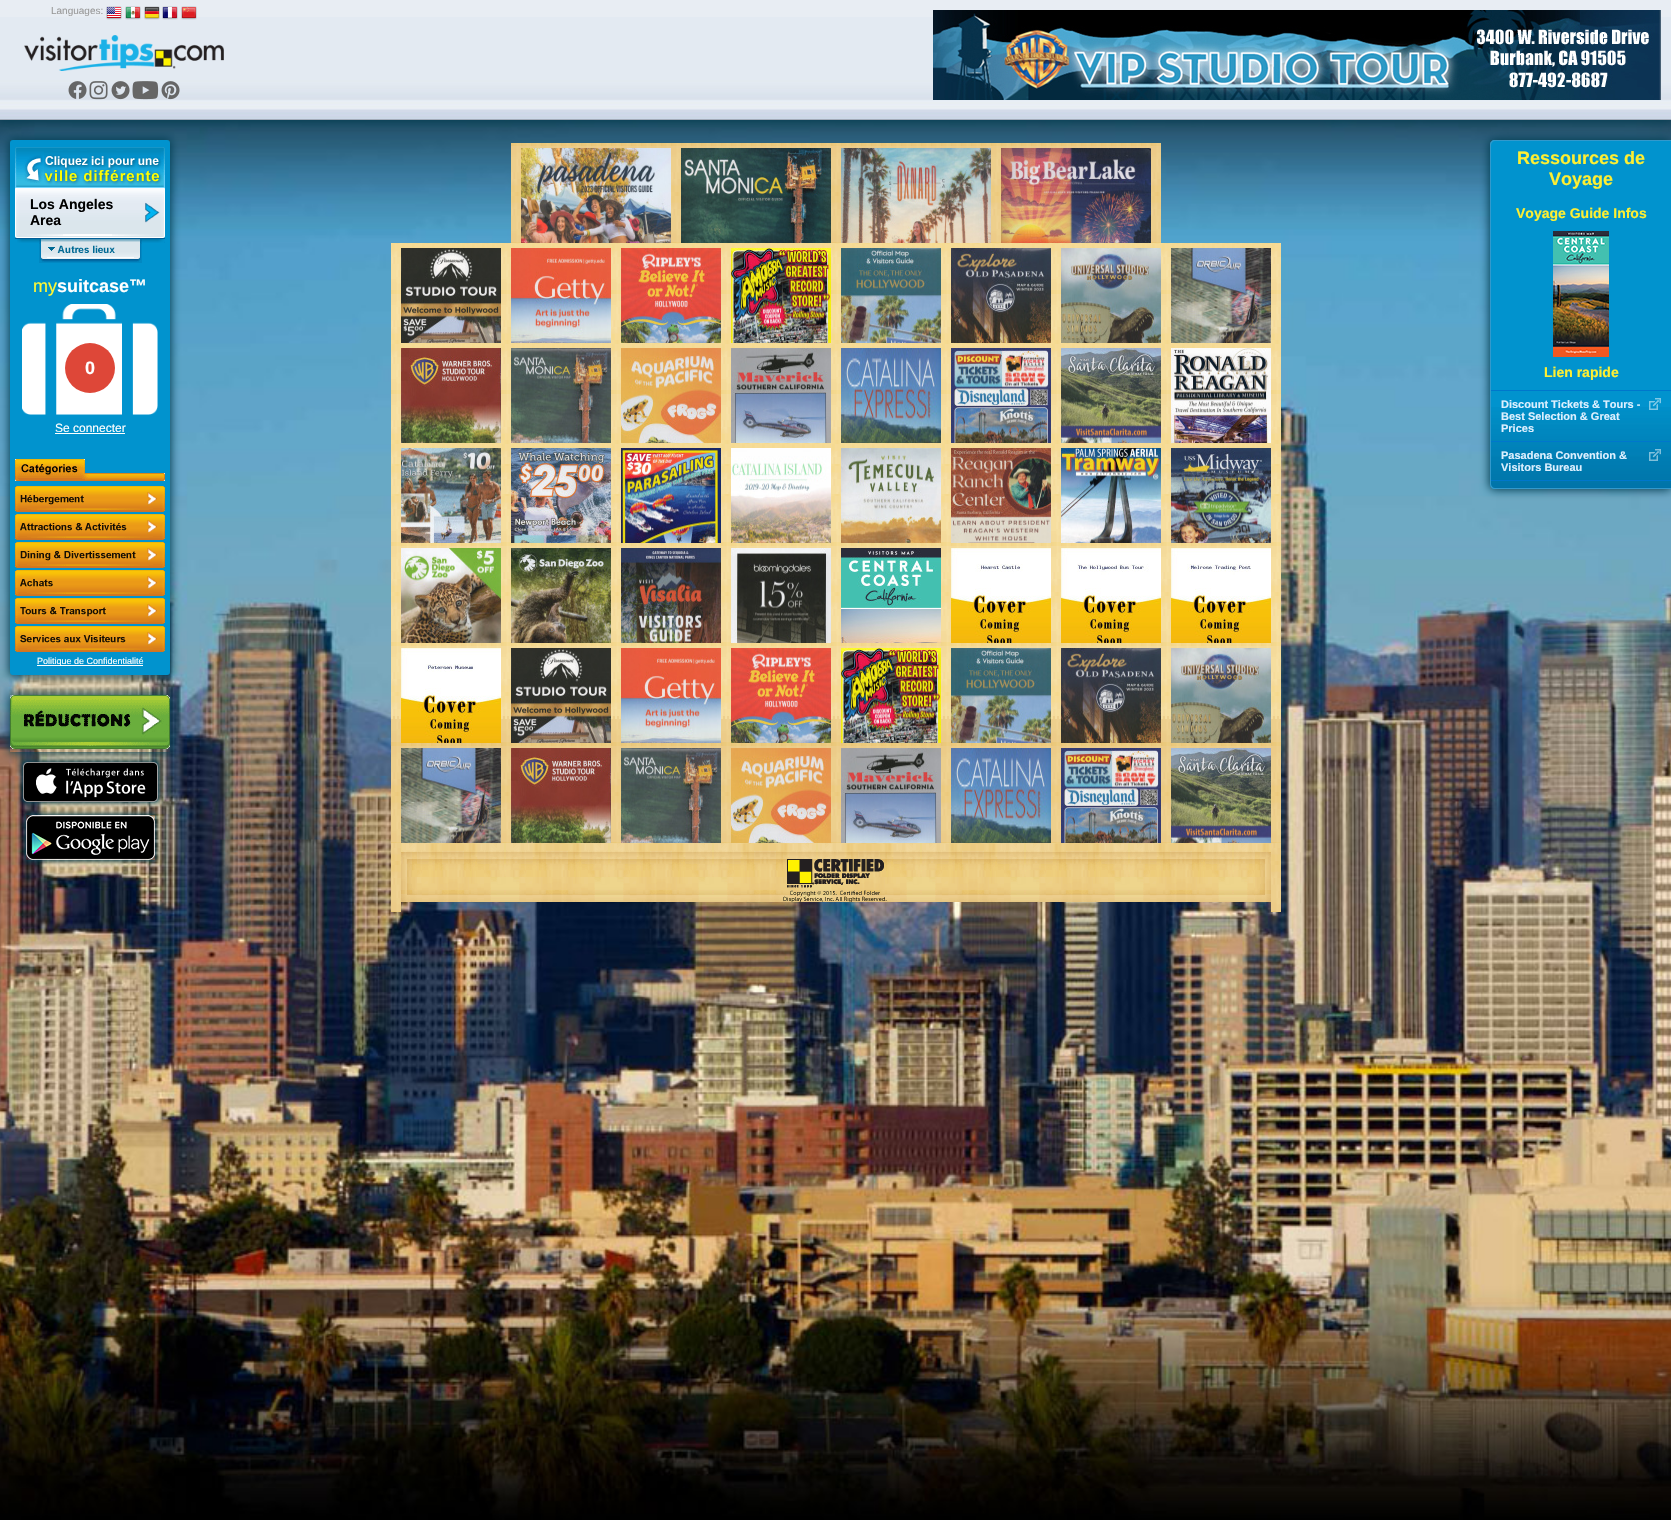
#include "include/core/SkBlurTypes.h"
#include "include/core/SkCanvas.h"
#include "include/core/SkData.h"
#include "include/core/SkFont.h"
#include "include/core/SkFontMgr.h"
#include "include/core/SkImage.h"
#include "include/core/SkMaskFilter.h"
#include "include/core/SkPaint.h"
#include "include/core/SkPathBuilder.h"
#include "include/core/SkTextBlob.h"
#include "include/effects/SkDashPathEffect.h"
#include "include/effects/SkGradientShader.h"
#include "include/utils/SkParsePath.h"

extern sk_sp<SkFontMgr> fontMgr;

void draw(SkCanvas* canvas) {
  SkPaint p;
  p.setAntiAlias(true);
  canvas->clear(SK_ColorWHITE);
  canvas->drawImageRect(SkImages::DeferredFromEncodedData(SkData::MakeFromFileName("images/14.png")), SkRect::MakeLTRB(0, 120, 1671, 1520), SkSamplingOptions());
  p.setColor(SkColorSetRGB(0, 60, 80));
  p.setMaskFilter(SkMaskFilter::MakeBlur(kNormal_SkBlurStyle, 5));
  canvas->drawRect(SkRect::MakeLTRB(-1, -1, 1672, 121), p);
  p.setMaskFilter(nullptr);
  p.setColor(SkColorSetRGB(232, 237, 243));
  canvas->drawRect(SkRect::MakeLTRB(0, 0, 1671, 17), p);
  canvas->drawImageRect(SkImages::DeferredFromEncodedData(SkData::MakeFromFileName("images/1.png")), SkRect::MakeLTRB(0, 17, 1671, 120), SkSamplingOptions());
  canvas->drawImageRect(SkImages::DeferredFromEncodedData(SkData::MakeFromFileName("images/2.png")), SkRect::MakeLTRB(106, 6, 122, 20), SkSamplingOptions());
  canvas->drawImageRect(SkImages::DeferredFromEncodedData(SkData::MakeFromFileName("images/3.png")), SkRect::MakeLTRB(125, 6, 141, 20), SkSamplingOptions());
  canvas->drawImageRect(SkImages::DeferredFromEncodedData(SkData::MakeFromFileName("images/4.png")), SkRect::MakeLTRB(144, 6, 160, 20), SkSamplingOptions());
  canvas->drawImageRect(SkImages::DeferredFromEncodedData(SkData::MakeFromFileName("images/5.png")), SkRect::MakeLTRB(162, 6, 178, 20), SkSamplingOptions());
  canvas->drawImageRect(SkImages::DeferredFromEncodedData(SkData::MakeFromFileName("images/6.png")), SkRect::MakeLTRB(181, 6, 197, 20), SkSamplingOptions());
  canvas->drawImageRect(SkImages::DeferredFromEncodedData(SkData::MakeFromFileName("images/7.png")), SkRect::MakeLTRB(933, 10, 1661, 100), SkSamplingOptions());
  canvas->drawImageRect(SkImages::DeferredFromEncodedData(SkData::MakeFromFileName("images/8.png")), SkRect::MakeLTRB(24, 35, 224, 71), SkSamplingOptions());
  canvas->drawImageRect(SkImages::DeferredFromEncodedData(SkData::MakeFromFileName("images/9.png")), SkRect::MakeLTRB(68, 81, 87, 99), SkSamplingOptions());
  canvas->drawImageRect(SkImages::DeferredFromEncodedData(SkData::MakeFromFileName("images/10.png")), SkRect::MakeLTRB(89, 81, 108, 100), SkSamplingOptions());
  canvas->drawImageRect(SkImages::DeferredFromEncodedData(SkData::MakeFromFileName("images/11.png")), SkRect::MakeLTRB(111, 81, 130, 100), SkSamplingOptions());
  canvas->drawImageRect(SkImages::DeferredFromEncodedData(SkData::MakeFromFileName("images/12.png")), SkRect::MakeLTRB(132, 81, 159, 100), SkSamplingOptions());
  canvas->drawImageRect(SkImages::DeferredFromEncodedData(SkData::MakeFromFileName("images/13.png")), SkRect::MakeLTRB(161, 81, 180, 100), SkSamplingOptions());
  p.setColor(SkColorSetRGB(0, 60, 80));
  p.setMaskFilter(SkMaskFilter::MakeBlur(kNormal_SkBlurStyle, 5));
  canvas->drawRoundRect(SkRect::MakeLTRB(9, 139, 171, 676), 4, 4, p);
  p.setMaskFilter(nullptr);
  p.setColor(SkColorSetRGB(1, 147, 206));
  canvas->drawRoundRect(SkRect::MakeLTRB(11, 141, 169, 674), 2, 2, p);
  p.setStyle(SkPaint::kStroke_Style);
  p.setStrokeWidth(2);
  canvas->drawRoundRect(SkRect::MakeLTRB(11, 141, 169, 674), 2, 2, p);
  canvas->drawImageRect(SkImages::DeferredFromEncodedData(SkData::MakeFromFileName("images/15.png")), SkRect::MakeLTRB(15, 233, 165, 238), SkSamplingOptions());
  canvas->drawImageRect(SkImages::DeferredFromEncodedData(SkData::MakeFromFileName("images/16.png")), SkRect::MakeLTRB(15, 147, 165, 233), SkSamplingOptions());
  canvas->drawImageRect(SkImages::DeferredFromEncodedData(SkData::MakeFromFileName("images/17.png")), SkRect::MakeLTRB(145, 202, 160, 223), SkSamplingOptions());
  canvas->drawImageRect(SkImages::DeferredFromEncodedData(SkData::MakeFromFileName("images/18.png")), SkRect::MakeLTRB(17, 239, 165, 243), SkSamplingOptions());
  p.setStyle(SkPaint::kFill_Style);
  p.setColor(SkColorSetRGB(0, 94, 151));
  canvas->drawRect(SkRect::MakeLTRB(15, 238, 165, 239), p);
  canvas->drawImageRect(SkImages::DeferredFromEncodedData(SkData::MakeFromFileName("images/19.png")), SkRect::MakeLTRB(39, 239, 142, 263), SkSamplingOptions());
  canvas->drawImageRect(SkImages::DeferredFromEncodedData(SkData::MakeFromFileName("images/20.png")), SkRect::MakeLTRB(22, 304, 158, 415), SkSamplingOptions());
  p.setColor(SkColorSetRGB(222, 71, 56));
  canvas->drawCircle(90, 368, 25, p);
  p.setColor(SK_ColorWHITE);
  canvas->drawRect(SkRect::MakeLTRB(55, 433, 125, 434), p);
  canvas->drawImageRect(SkImages::DeferredFromEncodedData(SkData::MakeFromFileName("images/21.png")), SkRect::MakeLTRB(15, 459, 165, 481), SkSamplingOptions());
  canvas->drawImageRect(SkImages::DeferredFromEncodedData(SkData::MakeFromFileName("images/22.png")), SkRect::MakeLTRB(15, 486, 165, 512), SkSamplingOptions());
  canvas->drawImageRect(SkImages::DeferredFromEncodedData(SkData::MakeFromFileName("images/23.png")), SkRect::MakeLTRB(20, 495, 84, 505), SkSamplingOptions());
  canvas->drawImageRect(SkImages::DeferredFromEncodedData(SkData::MakeFromFileName("images/22.png")), SkRect::MakeLTRB(15, 514, 165, 540), SkSamplingOptions());
  canvas->drawImageRect(SkImages::DeferredFromEncodedData(SkData::MakeFromFileName("images/24.png")), SkRect::MakeLTRB(20, 523, 127, 531), SkSamplingOptions());
  canvas->drawImageRect(SkImages::DeferredFromEncodedData(SkData::MakeFromFileName("images/22.png")), SkRect::MakeLTRB(15, 542, 165, 568), SkSamplingOptions());
  canvas->drawImageRect(SkImages::DeferredFromEncodedData(SkData::MakeFromFileName("images/25.png")), SkRect::MakeLTRB(20, 551, 136, 561), SkSamplingOptions());
  canvas->drawImageRect(SkImages::DeferredFromEncodedData(SkData::MakeFromFileName("images/22.png")), SkRect::MakeLTRB(15, 570, 165, 596), SkSamplingOptions());
  canvas->drawImageRect(SkImages::DeferredFromEncodedData(SkData::MakeFromFileName("images/26.png")), SkRect::MakeLTRB(20, 579, 53, 587), SkSamplingOptions());
  canvas->drawImageRect(SkImages::DeferredFromEncodedData(SkData::MakeFromFileName("images/22.png")), SkRect::MakeLTRB(15, 598, 165, 624), SkSamplingOptions());
  canvas->drawImageRect(SkImages::DeferredFromEncodedData(SkData::MakeFromFileName("images/27.png")), SkRect::MakeLTRB(20, 607, 106, 617), SkSamplingOptions());
  canvas->drawImageRect(SkImages::DeferredFromEncodedData(SkData::MakeFromFileName("images/22.png")), SkRect::MakeLTRB(15, 626, 165, 652), SkSamplingOptions());
  canvas->drawImageRect(SkImages::DeferredFromEncodedData(SkData::MakeFromFileName("images/28.png")), SkRect::MakeLTRB(20, 635, 126, 643), SkSamplingOptions());
  canvas->drawRect(SkRect::MakeLTRB(37, 665, 143, 666), p);
  canvas->save();
  canvas->clipPath(SkPathBuilder(SkPathFillType::kEvenOdd).moveTo(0, 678).lineTo(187, 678).lineTo(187, 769).lineTo(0, 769).close().moveTo(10, 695).lineTo(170, 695).lineTo(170, 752).lineTo(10, 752).close().detach(), true);
  p.setColor(SkColorSetRGB(0, 60, 80));
  p.setMaskFilter(SkMaskFilter::MakeBlur(kNormal_SkBlurStyle, 5));
  canvas->drawRect(SkRect::MakeLTRB(9, 694, 171, 753), p);
  p.setMaskFilter(nullptr);
  canvas->restore();
  canvas->drawImageRect(SkImages::DeferredFromEncodedData(SkData::MakeFromFileName("images/29.png")), SkRect::MakeLTRB(10, 695, 170, 749), SkSamplingOptions());
  p.setMaskFilter(SkMaskFilter::MakeBlur(kNormal_SkBlurStyle, 2.5f));
  canvas->drawRect(SkRect::MakeLTRB(22, 761, 159, 803), p);
  p.setMaskFilter(nullptr);
  canvas->drawImageRect(SkImages::DeferredFromEncodedData(SkData::MakeFromFileName("images/30.png")), SkRect::MakeLTRB(23, 762, 158, 802), SkSamplingOptions());
  canvas->save();
  canvas->clipPath(SkPathBuilder(SkPathFillType::kEvenOdd).moveTo(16, 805).lineTo(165, 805).lineTo(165, 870).lineTo(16, 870).close().moveTo(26, 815).lineTo(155, 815).lineTo(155, 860).lineTo(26, 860).close().detach(), true);
  p.setMaskFilter(SkMaskFilter::MakeBlur(kNormal_SkBlurStyle, 2.5f));
  canvas->drawRect(SkRect::MakeLTRB(25, 814, 156, 861), p);
  p.setMaskFilter(nullptr);
  canvas->restore();
  canvas->drawImageRect(SkImages::DeferredFromEncodedData(SkData::MakeFromFileName("images/31.png")), SkRect::MakeLTRB(26, 815, 155, 860), SkSamplingOptions());
  canvas->drawImageRect(SkImages::DeferredFromEncodedData(SkData::MakeFromFileName("images/32.png")), SkRect::MakeLTRB(511, 143, 1161, 243), SkSamplingOptions());
  canvas->drawImageRect(SkImages::DeferredFromEncodedData(SkData::MakeFromFileName("images/33.png")), SkRect::MakeLTRB(521, 148, 671, 243), SkSamplingOptions());
  canvas->drawImageRect(SkImages::DeferredFromEncodedData(SkData::MakeFromFileName("images/34.png")), SkRect::MakeLTRB(681, 148, 831, 243), SkSamplingOptions());
  canvas->drawImageRect(SkImages::DeferredFromEncodedData(SkData::MakeFromFileName("images/35.png")), SkRect::MakeLTRB(841, 148, 991, 243), SkSamplingOptions());
  canvas->drawImageRect(SkImages::DeferredFromEncodedData(SkData::MakeFromFileName("images/36.png")), SkRect::MakeLTRB(1001, 148, 1151, 243), SkSamplingOptions());
  canvas->drawImageRect(SkImages::DeferredFromEncodedData(SkData::MakeFromFileName("images/37.png")), SkRect::MakeLTRB(391, 243, 1281, 843), SkSamplingOptions());
  canvas->drawImageRect(SkImages::DeferredFromEncodedData(SkData::MakeFromFileName("images/38.png")), SkRect::MakeLTRB(401, 248, 501, 343), SkSamplingOptions());
  canvas->drawImageRect(SkImages::DeferredFromEncodedData(SkData::MakeFromFileName("images/39.png")), SkRect::MakeLTRB(511, 248, 611, 343), SkSamplingOptions());
  canvas->drawImageRect(SkImages::DeferredFromEncodedData(SkData::MakeFromFileName("images/40.png")), SkRect::MakeLTRB(621, 248, 721, 343), SkSamplingOptions());
  canvas->drawImageRect(SkImages::DeferredFromEncodedData(SkData::MakeFromFileName("images/41.png")), SkRect::MakeLTRB(731, 248, 831, 343), SkSamplingOptions());
  canvas->drawImageRect(SkImages::DeferredFromEncodedData(SkData::MakeFromFileName("images/42.png")), SkRect::MakeLTRB(841, 248, 941, 343), SkSamplingOptions());
  canvas->drawImageRect(SkImages::DeferredFromEncodedData(SkData::MakeFromFileName("images/43.png")), SkRect::MakeLTRB(951, 248, 1051, 343), SkSamplingOptions());
  canvas->drawImageRect(SkImages::DeferredFromEncodedData(SkData::MakeFromFileName("images/44.png")), SkRect::MakeLTRB(1061, 248, 1161, 343), SkSamplingOptions());
  canvas->drawImageRect(SkImages::DeferredFromEncodedData(SkData::MakeFromFileName("images/45.png")), SkRect::MakeLTRB(1171, 248, 1271, 343), SkSamplingOptions());
  canvas->drawImageRect(SkImages::DeferredFromEncodedData(SkData::MakeFromFileName("images/46.png")), SkRect::MakeLTRB(401, 348, 501, 443), SkSamplingOptions());
  canvas->drawImageRect(SkImages::DeferredFromEncodedData(SkData::MakeFromFileName("images/47.png")), SkRect::MakeLTRB(511, 348, 611, 443), SkSamplingOptions());
  canvas->drawImageRect(SkImages::DeferredFromEncodedData(SkData::MakeFromFileName("images/48.png")), SkRect::MakeLTRB(621, 348, 721, 443), SkSamplingOptions());
  canvas->drawImageRect(SkImages::DeferredFromEncodedData(SkData::MakeFromFileName("images/49.png")), SkRect::MakeLTRB(731, 348, 831, 443), SkSamplingOptions());
  canvas->drawImageRect(SkImages::DeferredFromEncodedData(SkData::MakeFromFileName("images/50.png")), SkRect::MakeLTRB(841, 348, 941, 443), SkSamplingOptions());
  canvas->drawImageRect(SkImages::DeferredFromEncodedData(SkData::MakeFromFileName("images/51.png")), SkRect::MakeLTRB(951, 348, 1051, 443), SkSamplingOptions());
  canvas->drawImageRect(SkImages::DeferredFromEncodedData(SkData::MakeFromFileName("images/52.png")), SkRect::MakeLTRB(1061, 348, 1161, 443), SkSamplingOptions());
  canvas->drawImageRect(SkImages::DeferredFromEncodedData(SkData::MakeFromFileName("images/53.png")), SkRect::MakeLTRB(1171, 348, 1271, 443), SkSamplingOptions());
  canvas->drawImageRect(SkImages::DeferredFromEncodedData(SkData::MakeFromFileName("images/54.png")), SkRect::MakeLTRB(401, 448, 501, 543), SkSamplingOptions());
  canvas->drawImageRect(SkImages::DeferredFromEncodedData(SkData::MakeFromFileName("images/55.png")), SkRect::MakeLTRB(511, 448, 611, 543), SkSamplingOptions());
  canvas->drawImageRect(SkImages::DeferredFromEncodedData(SkData::MakeFromFileName("images/56.png")), SkRect::MakeLTRB(621, 448, 721, 543), SkSamplingOptions());
  canvas->drawImageRect(SkImages::DeferredFromEncodedData(SkData::MakeFromFileName("images/57.png")), SkRect::MakeLTRB(731, 448, 831, 543), SkSamplingOptions());
  canvas->drawImageRect(SkImages::DeferredFromEncodedData(SkData::MakeFromFileName("images/58.png")), SkRect::MakeLTRB(841, 448, 941, 543), SkSamplingOptions());
  canvas->drawImageRect(SkImages::DeferredFromEncodedData(SkData::MakeFromFileName("images/59.png")), SkRect::MakeLTRB(951, 448, 1051, 543), SkSamplingOptions());
  canvas->drawImageRect(SkImages::DeferredFromEncodedData(SkData::MakeFromFileName("images/60.png")), SkRect::MakeLTRB(1061, 448, 1161, 543), SkSamplingOptions());
  canvas->drawImageRect(SkImages::DeferredFromEncodedData(SkData::MakeFromFileName("images/61.png")), SkRect::MakeLTRB(1171, 448, 1271, 543), SkSamplingOptions());
  canvas->drawImageRect(SkImages::DeferredFromEncodedData(SkData::MakeFromFileName("images/62.png")), SkRect::MakeLTRB(401, 548, 501, 643), SkSamplingOptions());
  canvas->drawImageRect(SkImages::DeferredFromEncodedData(SkData::MakeFromFileName("images/63.png")), SkRect::MakeLTRB(511, 548, 611, 643), SkSamplingOptions());
  canvas->drawImageRect(SkImages::DeferredFromEncodedData(SkData::MakeFromFileName("images/64.png")), SkRect::MakeLTRB(621, 548, 721, 643), SkSamplingOptions());
  canvas->drawImageRect(SkImages::DeferredFromEncodedData(SkData::MakeFromFileName("images/65.png")), SkRect::MakeLTRB(731, 548, 831, 643), SkSamplingOptions());
  canvas->drawImageRect(SkImages::DeferredFromEncodedData(SkData::MakeFromFileName("images/66.png")), SkRect::MakeLTRB(841, 548, 941, 643), SkSamplingOptions());
  canvas->drawImageRect(SkImages::DeferredFromEncodedData(SkData::MakeFromFileName("images/67.png")), SkRect::MakeLTRB(951, 548, 1051, 643), SkSamplingOptions());
  canvas->drawImageRect(SkImages::DeferredFromEncodedData(SkData::MakeFromFileName("images/68.png")), SkRect::MakeLTRB(1061, 548, 1161, 643), SkSamplingOptions());
  canvas->drawImageRect(SkImages::DeferredFromEncodedData(SkData::MakeFromFileName("images/69.png")), SkRect::MakeLTRB(1171, 548, 1271, 643), SkSamplingOptions());
  canvas->drawImageRect(SkImages::DeferredFromEncodedData(SkData::MakeFromFileName("images/70.png")), SkRect::MakeLTRB(401, 648, 501, 743), SkSamplingOptions());
  canvas->drawImageRect(SkImages::DeferredFromEncodedData(SkData::MakeFromFileName("images/38.png")), SkRect::MakeLTRB(511, 648, 611, 743), SkSamplingOptions());
  canvas->drawImageRect(SkImages::DeferredFromEncodedData(SkData::MakeFromFileName("images/71.png")), SkRect::MakeLTRB(621, 648, 721, 743), SkSamplingOptions());
  canvas->drawImageRect(SkImages::DeferredFromEncodedData(SkData::MakeFromFileName("images/40.png")), SkRect::MakeLTRB(731, 648, 831, 743), SkSamplingOptions());
  canvas->drawImageRect(SkImages::DeferredFromEncodedData(SkData::MakeFromFileName("images/41.png")), SkRect::MakeLTRB(841, 648, 941, 743), SkSamplingOptions());
  canvas->drawImageRect(SkImages::DeferredFromEncodedData(SkData::MakeFromFileName("images/42.png")), SkRect::MakeLTRB(951, 648, 1051, 743), SkSamplingOptions());
  canvas->drawImageRect(SkImages::DeferredFromEncodedData(SkData::MakeFromFileName("images/43.png")), SkRect::MakeLTRB(1061, 648, 1161, 743), SkSamplingOptions());
  canvas->drawImageRect(SkImages::DeferredFromEncodedData(SkData::MakeFromFileName("images/44.png")), SkRect::MakeLTRB(1171, 648, 1271, 743), SkSamplingOptions());
  canvas->drawImageRect(SkImages::DeferredFromEncodedData(SkData::MakeFromFileName("images/45.png")), SkRect::MakeLTRB(401, 748, 501, 843), SkSamplingOptions());
  canvas->drawImageRect(SkImages::DeferredFromEncodedData(SkData::MakeFromFileName("images/46.png")), SkRect::MakeLTRB(511, 748, 611, 843), SkSamplingOptions());
  canvas->drawImageRect(SkImages::DeferredFromEncodedData(SkData::MakeFromFileName("images/47.png")), SkRect::MakeLTRB(621, 748, 721, 843), SkSamplingOptions());
  canvas->drawImageRect(SkImages::DeferredFromEncodedData(SkData::MakeFromFileName("images/72.png")), SkRect::MakeLTRB(731, 748, 831, 843), SkSamplingOptions());
  canvas->drawImageRect(SkImages::DeferredFromEncodedData(SkData::MakeFromFileName("images/49.png")), SkRect::MakeLTRB(841, 748, 941, 843), SkSamplingOptions());
  canvas->drawImageRect(SkImages::DeferredFromEncodedData(SkData::MakeFromFileName("images/50.png")), SkRect::MakeLTRB(951, 748, 1051, 843), SkSamplingOptions());
  canvas->drawImageRect(SkImages::DeferredFromEncodedData(SkData::MakeFromFileName("images/51.png")), SkRect::MakeLTRB(1061, 748, 1161, 843), SkSamplingOptions());
  canvas->drawImageRect(SkImages::DeferredFromEncodedData(SkData::MakeFromFileName("images/52.png")), SkRect::MakeLTRB(1171, 748, 1271, 843), SkSamplingOptions());
  canvas->drawImageRect(SkImages::DeferredFromEncodedData(SkData::MakeFromFileName("images/73.png")), SkRect::MakeLTRB(391, 843, 401, 912), SkSamplingOptions());
  canvas->drawImageRect(SkImages::DeferredFromEncodedData(SkData::MakeFromFileName("images/73.png")), SkRect::MakeLTRB(1271, 843, 1281, 912), SkSamplingOptions());
  canvas->drawImageRect(SkImages::DeferredFromEncodedData(SkData::MakeFromFileName("images/74.png")), SkRect::MakeLTRB(401, 843, 1271, 902), SkSamplingOptions());
  canvas->drawImageRect(SkImages::DeferredFromEncodedData(SkData::MakeFromFileName("images/75.png")), SkRect::MakeLTRB(401, 852, 417, 902), SkSamplingOptions());
  canvas->drawImageRect(SkImages::DeferredFromEncodedData(SkData::MakeFromFileName("images/76.png")), SkRect::MakeLTRB(1255, 852, 1271, 902), SkSamplingOptions());
  canvas->drawImageRect(SkImages::DeferredFromEncodedData(SkData::MakeFromFileName("images/77.png")), SkRect::MakeLTRB(783, 859, 887, 902), SkSamplingOptions());
  p.setMaskFilter(SkMaskFilter::MakeBlur(kNormal_SkBlurStyle, 5));
  canvas->drawRoundRect(SkRect::MakeLTRB(1489, 139, 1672, 490), 6, 6, p);
  p.setMaskFilter(nullptr);
  p.setColor(SkColorSetRGB(1, 147, 206));
  canvas->drawPath(SkPathBuilder().moveTo(1495, 140).lineTo(1671, 140).lineTo(1671, 489).lineTo(1495, 489).cubicTo(1492, 489, 1490, 487, 1490, 484).lineTo(1490, 145).cubicTo(1490, 142, 1492, 140, 1495, 140).close().detach(), p);
  canvas->drawImageRect(SkImages::DeferredFromEncodedData(SkData::MakeFromFileName("images/78.png")), SkRect::MakeLTRB(1490, 407, 1671, 488), SkSamplingOptions());
  p.setColor(SkColorSetRGB(51, 153, 204));
  canvas->drawPath(SkPathBuilder(SkPathFillType::kEvenOdd).moveTo(1495, 140).lineTo(1671, 140).lineTo(1671, 489).lineTo(1495, 489).cubicTo(1492, 489, 1490, 487, 1490, 484).lineTo(1490, 145).cubicTo(1490, 142, 1492, 140, 1495, 140).close().moveTo(1495, 141).lineTo(1671, 141).lineTo(1671, 488).lineTo(1495, 488).cubicTo(1493, 488, 1491, 486, 1491, 484).lineTo(1491, 145).cubicTo(1491, 143, 1493, 141, 1495, 141).close().detach(), p);
  canvas->drawImageRect(SkImages::DeferredFromEncodedData(SkData::MakeFromFileName("images/79.png")), SkRect::MakeLTRB(1553, 231, 1609, 357), SkSamplingOptions());
  p.setColor(SkColorSetRGB(0, 119, 204));
  canvas->drawRect(SkRect::MakeLTRB(1491, 390, 1671, 391), p);
  canvas->drawRect(SkRect::MakeLTRB(1491, 441, 1671, 442), p);
  canvas->drawImageRect(SkImages::DeferredFromEncodedData(SkData::MakeFromFileName("images/80.png")), SkRect::MakeLTRB(1649, 398, 1661, 410), SkSamplingOptions());
  canvas->drawRect(SkRect::MakeLTRB(1491, 480, 1671, 481), p);
  canvas->drawImageRect(SkImages::DeferredFromEncodedData(SkData::MakeFromFileName("images/81.png")), SkRect::MakeLTRB(1649, 449, 1661, 461), SkSamplingOptions());
  SkFont font1(fontMgr->matchFamilyStyle("Liberation Sans", SkFontStyle::Normal()), 10);
  font1.setSubpixel(true);
  p.setColor(SkColorSetRGB(153, 153, 153));
  canvas->drawString("Languages:", 51, 14, font1, p);
  SkFont font2(fontMgr->matchFamilyStyle("Liberation Sans", SkFontStyle::Bold()), 14);
  font2.setSubpixel(true);
  p.setColor(SK_ColorBLACK);
  canvas->drawString("Los Angeles", 30, 209, font2, p);
  canvas->drawString("Area", 30, 225, font2, p);
  SkFont font3(fontMgr->matchFamilyStyle("Liberation Sans", SkFontStyle::Normal()), 18);
  font3.setSubpixel(true);
  p.setColor(SkColorSetRGB(255, 248, 53));
  canvas->drawString("my", 33, 292, font3, p);
  SkFont font4(fontMgr->matchFamilyStyle("Liberation Sans", SkFontStyle::Bold()), 18);
  font4.setSubpixel(true);
  p.setColor(SK_ColorWHITE);
  canvas->drawString("suitcase™", 57, 292, font4, p);
  canvas->drawString("0", 85, 374, font4, p);
  SkFont font5(fontMgr->matchFamilyStyle("Liberation Sans", SkFontStyle::Normal()), 12);
  font5.setSubpixel(true);
  canvas->drawString("Se connecter", 55, 432, font5, p);
  SkFont font6(fontMgr->matchFamilyStyle("Liberation Sans", SkFontStyle::Normal()), 9);
  font6.setSubpixel(true);
  canvas->drawString("Politique de Confidentialité", 37, 664, font6, p);
  p.setColor(SkColorSetRGB(254, 239, 50));
  canvas->drawString("Ressources de", 1517, 164, font4, p);
  canvas->drawString("Voyage", 1549, 185, font4, p);
  canvas->drawString("Voyage Guide Infos", 1516, 218, font2, p);
  canvas->drawString("Lien rapide", 1544, 377, font2, p);
  SkFont font7(fontMgr->matchFamilyStyle("Liberation Sans", SkFontStyle::Bold()), 11);
  font7.setSubpixel(true);
  p.setColor(SkColorSetRGB(221, 240, 255));
  canvas->drawString("Discount Tickets & Tours -", 1501, 408, font7, p);
  canvas->drawString("Best Selection & Great", 1501, 420, font7, p);
  canvas->drawString("Prices", 1501, 432, font7, p);
  canvas->drawString("Pasadena Convention &", 1501, 459, font7, p);
  canvas->drawString("Visitors Bureau", 1501, 471, font7, p);
}
